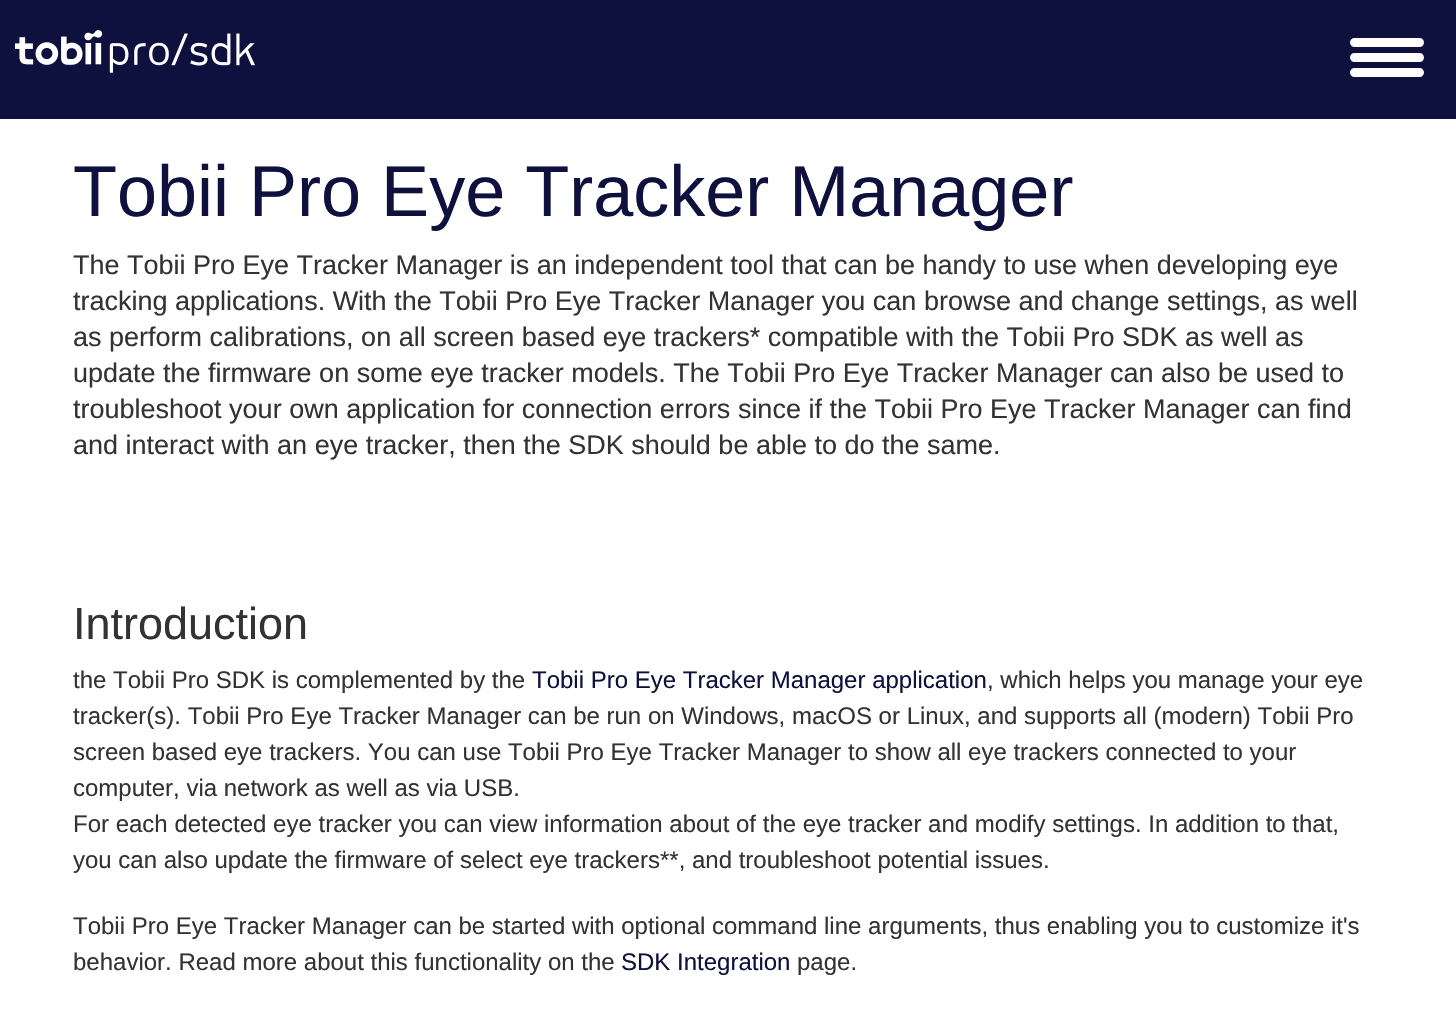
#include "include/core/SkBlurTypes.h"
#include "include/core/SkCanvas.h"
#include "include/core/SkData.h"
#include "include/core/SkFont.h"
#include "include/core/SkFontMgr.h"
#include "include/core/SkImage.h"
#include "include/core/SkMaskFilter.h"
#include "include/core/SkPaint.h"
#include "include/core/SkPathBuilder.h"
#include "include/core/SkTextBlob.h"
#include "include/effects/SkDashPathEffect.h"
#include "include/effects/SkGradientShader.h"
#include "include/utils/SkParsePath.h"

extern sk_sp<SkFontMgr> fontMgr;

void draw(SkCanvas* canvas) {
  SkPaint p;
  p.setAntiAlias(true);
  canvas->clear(SK_ColorWHITE);
  p.setColor(SkColorSetRGB(14, 16, 62));
  canvas->drawRect(SkRect::MakeLTRB(0, 0, 1456, 119), p);
  canvas->drawImageRect(SkImages::DeferredFromEncodedData(SkData::MakeFromFileName("images/1.png")), SkRect::MakeLTRB(15, 30, 255, 73), SkSamplingOptions());
  p.setColor(SK_ColorWHITE);
  canvas->drawPath(SkPathBuilder().moveTo(1354.5f, 38).lineTo(1388, 38).lineTo(1388, 47).lineTo(1354.5f, 47).cubicTo(1352, 47, 1350, 45, 1350, 42.5f).cubicTo(1350, 40, 1352, 38, 1354.5f, 38).close().detach(), p);
  canvas->drawPath(SkPathBuilder().moveTo(1386, 38).lineTo(1419.5f, 38).cubicTo(1422, 38, 1424, 40, 1424, 42.5f).cubicTo(1424, 45, 1422, 47, 1419.5f, 47).lineTo(1386, 47).close().detach(), p);
  canvas->drawPath(SkPathBuilder().moveTo(1354.5f, 53).lineTo(1388, 53).lineTo(1388, 62).lineTo(1354.5f, 62).cubicTo(1352, 62, 1350, 60, 1350, 57.5f).cubicTo(1350, 55, 1352, 53, 1354.5f, 53).close().detach(), p);
  canvas->drawPath(SkPathBuilder().moveTo(1386, 53).lineTo(1419.5f, 53).cubicTo(1422, 53, 1424, 55, 1424, 57.5f).cubicTo(1424, 60, 1422, 62, 1419.5f, 62).lineTo(1386, 62).close().detach(), p);
  canvas->drawPath(SkPathBuilder().moveTo(1354.5f, 68).lineTo(1388, 68).lineTo(1388, 77).lineTo(1354.5f, 77).cubicTo(1352, 77, 1350, 75, 1350, 72.5f).cubicTo(1350, 70, 1352, 68, 1354.5f, 68).close().detach(), p);
  canvas->drawPath(SkPathBuilder().moveTo(1386, 68).lineTo(1419.5f, 68).cubicTo(1422, 68, 1424, 70, 1424, 72.5f).cubicTo(1424, 75, 1422, 77, 1419.5f, 77).lineTo(1386, 77).close().detach(), p);
  SkFont font1(fontMgr->matchFamilyStyle("Liberation Sans", SkFontStyle::Normal()), 72);
  font1.setSubpixel(true);
  p.setColor(SkColorSetRGB(14, 16, 62));
  canvas->drawString("Tobii Pro Eye Tracker Manager", 73, 216, font1, p);
  SkFont font2(fontMgr->matchFamilyStyle("Liberation Sans", SkFontStyle::Normal()), 27);
  font2.setSubpixel(true);
  p.setColor(SkColorSetRGB(51, 51, 51));
  canvas->drawString("The Tobii Pro Eye Tracker Manager is an independent tool that can be handy to use when developing eye", 73, 274, font2, p);
  canvas->drawString("tracking applications. With the Tobii Pro Eye Tracker Manager you can browse and change settings, as well", 73, 310, font2, p);
  canvas->drawString("as perform calibrations, on all screen based eye trackers* compatible with the Tobii Pro SDK as well as", 73, 346, font2, p);
  canvas->drawString("update the firmware on some eye tracker models. The Tobii Pro Eye Tracker Manager can also be used to", 73, 382, font2, p);
  canvas->drawString("troubleshoot your own application for connection errors since if the Tobii Pro Eye Tracker Manager can find", 73, 418, font2, p);
  canvas->drawString("and interact with an eye tracker, then the SDK should be able to do the same.", 73, 454, font2, p);
  SkFont font3(fontMgr->matchFamilyStyle("Liberation Sans", SkFontStyle::Normal()), 45);
  font3.setSubpixel(true);
  canvas->drawString("Introduction", 73, 639, font3, p);
  SkFont font4(fontMgr->matchFamilyStyle("Liberation Sans", SkFontStyle::Normal()), 24);
  font4.setSubpixel(true);
  canvas->drawString("the Tobii Pro SDK is complemented by the", 73, 688, font4, p);
  p.setColor(SkColorSetRGB(14, 16, 62));
  canvas->drawString("Tobii Pro Eye Tracker Manager application", 532, 688, font4, p);
  p.setColor(SkColorSetRGB(51, 51, 51));
  canvas->drawString(", which helps you manage your eye", 987, 688, font4, p);
  canvas->drawString("tracker(s). Tobii Pro Eye Tracker Manager can be run on Windows, macOS or Linux, and supports all (modern) Tobii Pro", 73, 724, font4, p);
  canvas->drawString("screen based eye trackers. You can use Tobii Pro Eye Tracker Manager to show all eye trackers connected to your", 73, 760, font4, p);
  canvas->drawString("computer, via network as well as via USB.", 73, 796, font4, p);
  canvas->drawString("For each detected eye tracker you can view information about of the eye tracker and modify settings. In addition to that,", 73, 832, font4, p);
  canvas->drawString("you can also update the firmware of select eye trackers**, and troubleshoot potential issues.", 73, 868, font4, p);
  canvas->drawString("Tobii Pro Eye Tracker Manager can be started with optional command line arguments, thus enabling you to customize it's", 73, 934, font4, p);
  canvas->drawString("behavior. Read more about this functionality on the", 73, 970, font4, p);
  p.setColor(SkColorSetRGB(14, 16, 62));
  canvas->drawString("SDK Integration", 621, 970, font4, p);
  p.setColor(SkColorSetRGB(51, 51, 51));
  canvas->drawString("page.", 797, 970, font4, p);
}
